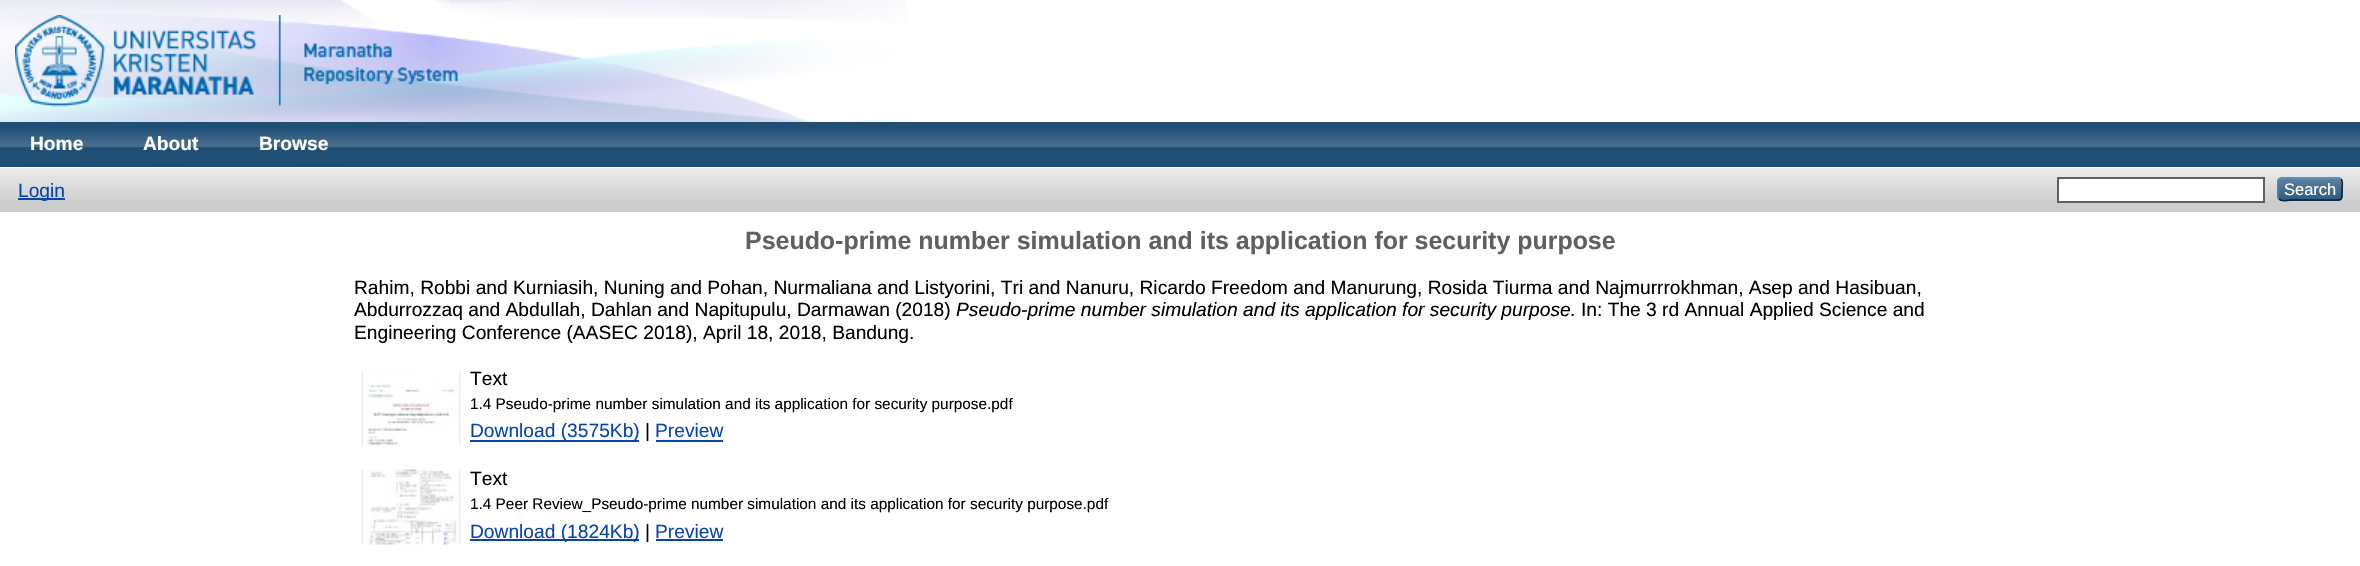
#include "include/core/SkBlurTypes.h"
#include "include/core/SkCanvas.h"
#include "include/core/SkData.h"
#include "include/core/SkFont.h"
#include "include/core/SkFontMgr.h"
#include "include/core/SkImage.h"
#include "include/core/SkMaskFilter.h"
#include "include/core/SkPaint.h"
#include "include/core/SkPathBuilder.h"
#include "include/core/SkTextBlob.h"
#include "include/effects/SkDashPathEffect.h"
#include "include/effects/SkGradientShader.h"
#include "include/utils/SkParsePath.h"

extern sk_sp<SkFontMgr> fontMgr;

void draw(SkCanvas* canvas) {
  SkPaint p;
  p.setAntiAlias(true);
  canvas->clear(SK_ColorWHITE);
  canvas->drawImageRect(SkImages::DeferredFromEncodedData(SkData::MakeFromFileName("images/1.png")), SkRect::MakeLTRB(0, 0, 907, 122), SkSamplingOptions());
  canvas->drawImageRect(SkImages::DeferredFromEncodedData(SkData::MakeFromFileName("images/2.png")), SkRect::MakeLTRB(15, 15, 458, 107), SkSamplingOptions());
  p.setColor(SkColorSetRGB(32, 79, 118));
  canvas->drawRect(SkRect::MakeLTRB(0, 122, 2360, 167), p);
  canvas->drawImageRect(SkImages::DeferredFromEncodedData(SkData::MakeFromFileName("images/3.png")), SkRect::MakeLTRB(0, 130, 2360, 148), SkSamplingOptions());
  p.setColor(SkColorSetRGB(204, 204, 204));
  canvas->drawRect(SkRect::MakeLTRB(0, 168, 2360, 212), p);
  canvas->drawImageRect(SkImages::DeferredFromEncodedData(SkData::MakeFromFileName("images/4.png")), SkRect::MakeLTRB(0, 168, 2360, 200), SkSamplingOptions());
  p.setColor(SkColorSetRGB(6, 69, 173));
  canvas->drawRect(SkRect::MakeLTRB(18, 198, 65, 200), p);
  p.setColor(SK_ColorWHITE);
  canvas->drawRect(SkRect::MakeLTRB(2058, 178, 2264, 202), p);
  p.setStyle(SkPaint::kStroke_Style);
  p.setStrokeWidth(2);
  p.setColor(SkColorSetRGB(96, 96, 96));
  canvas->drawRect(SkRect::MakeLTRB(2058, 178, 2264, 202), p);
  p.setStyle(SkPaint::kFill_Style);
  p.setColor(SkColorSetRGB(31, 79, 118));
  canvas->drawRoundRect(SkRect::MakeLTRB(2277, 177, 2343, 201), 5, 5, p);
  canvas->drawImageRect(SkImages::DeferredFromEncodedData(SkData::MakeFromFileName("images/5.png")), SkRect::MakeLTRB(2277, 177, 2343, 201), SkSamplingOptions());
  p.setStyle(SkPaint::kStroke_Style);
  p.setStrokeWidth(1.5f);
  p.setColor(SkColorSetRGB(91, 151, 199));
  canvas->drawPath(SkPathBuilder().moveTo(2279, 179).lineTo(2281, 178).lineTo(2339, 178).lineTo(2341, 179).detach(), p);
  p.setColor(SkColorSetRGB(13, 33, 49));
  canvas->drawPath(SkPathBuilder().moveTo(2341, 179).cubicTo(2343.5f, 181, 2342, 186, 2342, 189).cubicTo(2342, 202, 2343, 200, 2329, 200).lineTo(2291, 200).cubicTo(2290.5f, 200, 2281.5f, 202, 2279, 199).detach(), p);
  p.setColor(SkColorSetRGB(82, 135, 179));
  canvas->drawPath(SkPathBuilder().moveTo(2279, 199).cubicTo(2278, 198.5f, 2278, 197.5f, 2278, 196.5f).lineTo(2278, 181.5f).cubicTo(2278, 180.5f, 2278, 179.5f, 2279, 179).detach(), p);
  canvas->drawImageRect(SkImages::DeferredFromEncodedData(SkData::MakeFromFileName("images/6.png")), SkRect::MakeLTRB(361, 370, 461, 446), SkSamplingOptions());
  p.setStyle(SkPaint::kFill_Style);
  p.setColor(SkColorSetRGB(6, 69, 173));
  canvas->drawRect(SkRect::MakeLTRB(470, 440, 639, 442), p);
  canvas->drawRect(SkRect::MakeLTRB(656, 440, 723, 442), p);
  canvas->drawImageRect(SkImages::DeferredFromEncodedData(SkData::MakeFromFileName("images/7.png")), SkRect::MakeLTRB(361, 469, 461, 545), SkSamplingOptions());
  canvas->drawRect(SkRect::MakeLTRB(470, 539, 639, 541), p);
  canvas->drawRect(SkRect::MakeLTRB(656, 539, 723, 541), p);
  SkFont font1(fontMgr->matchFamilyStyle("Liberation Sans", SkFontStyle::Bold()), 19.2f);
  font1.setSubpixel(true);
  p.setColor(SK_ColorWHITE);
  canvas->drawString("Home", 30, 150, font1, p);
  canvas->drawString("About", 143, 150, font1, p);
  canvas->drawString("Browse", 259, 150, font1, p);
  SkFont font2(fontMgr->matchFamilyStyle("Liberation Sans", SkFontStyle::Normal()), 19.2f);
  font2.setSubpixel(true);
  p.setColor(SkColorSetRGB(6, 69, 173));
  canvas->drawString("Login", 18, 197, font2, p);
  SkFont font3(fontMgr->matchFamilyStyle("Liberation Sans", SkFontStyle::Normal()), 16.5f);
  font3.setSubpixel(true);
  p.setColor(SK_ColorWHITE);
  canvas->drawString("Search", 2284, 195, font3, p);
  SkFont font4(fontMgr->matchFamilyStyle("Liberation Sans", SkFontStyle::Bold()), 24.95f);
  font4.setSubpixel(true);
  p.setColor(SkColorSetRGB(96, 96, 96));
  canvas->drawString("Pseudo-prime number simulation and its application for security purpose", 745, 249, font4, p);
  p.setColor(SK_ColorBLACK);
  canvas->drawString("Rahim, Robbi and Kurniasih, Nuning and Pohan, Nurmaliana and Listyorini, Tri and Nanuru, Ricardo Freedom and Manurung, Rosida Tiurma and Najmurrrokhman, Asep and Hasibuan,", 354, 294, font2, p);
  canvas->drawString("Abdurrozzaq and Abdullah, Dahlan and Napitupulu, Darmawan (2018)", 354, 316, font2, p);
  SkFont font5(fontMgr->matchFamilyStyle("Liberation Sans", SkFontStyle::Italic()), 19.2f);
  font5.setSubpixel(true);
  canvas->drawString("Pseudo-prime number simulation and its application for security purpose.", 956, 316, font5, p);
  canvas->drawString("In: The 3 rd Annual Applied Science and", 1581, 316, font2, p);
  canvas->drawString("Engineering Conference (AASEC 2018), April 18, 2018, Bandung.", 354, 339, font2, p);
  canvas->drawString("Text", 470, 385, font2, p);
  SkFont font6(fontMgr->matchFamilyStyle("Liberation Sans", SkFontStyle::Normal()), 15.35f);
  font6.setSubpixel(true);
  canvas->drawString("1.4 Pseudo-prime number simulation and its application for security purpose.pdf", 470, 409, font6, p);
  p.setColor(SkColorSetRGB(6, 69, 173));
  canvas->drawString("Download (3575Kb)", 470, 437, font2, p);
  p.setColor(SK_ColorBLACK);
  canvas->drawString("|", 645, 437, font2, p);
  p.setColor(SkColorSetRGB(6, 69, 173));
  canvas->drawString("Preview", 655, 437, font2, p);
  p.setColor(SK_ColorBLACK);
  canvas->drawString("Text", 470, 485, font2, p);
  canvas->drawString("1.4 Peer Review_Pseudo-prime number simulation and its application for security purpose.pdf", 470, 509, font6, p);
  p.setColor(SkColorSetRGB(6, 69, 173));
  canvas->drawString("Download (1824Kb)", 470, 538, font2, p);
  p.setColor(SK_ColorBLACK);
  canvas->drawString("|", 645, 538, font2, p);
  p.setColor(SkColorSetRGB(6, 69, 173));
  canvas->drawString("Preview", 655, 538, font2, p);
}
